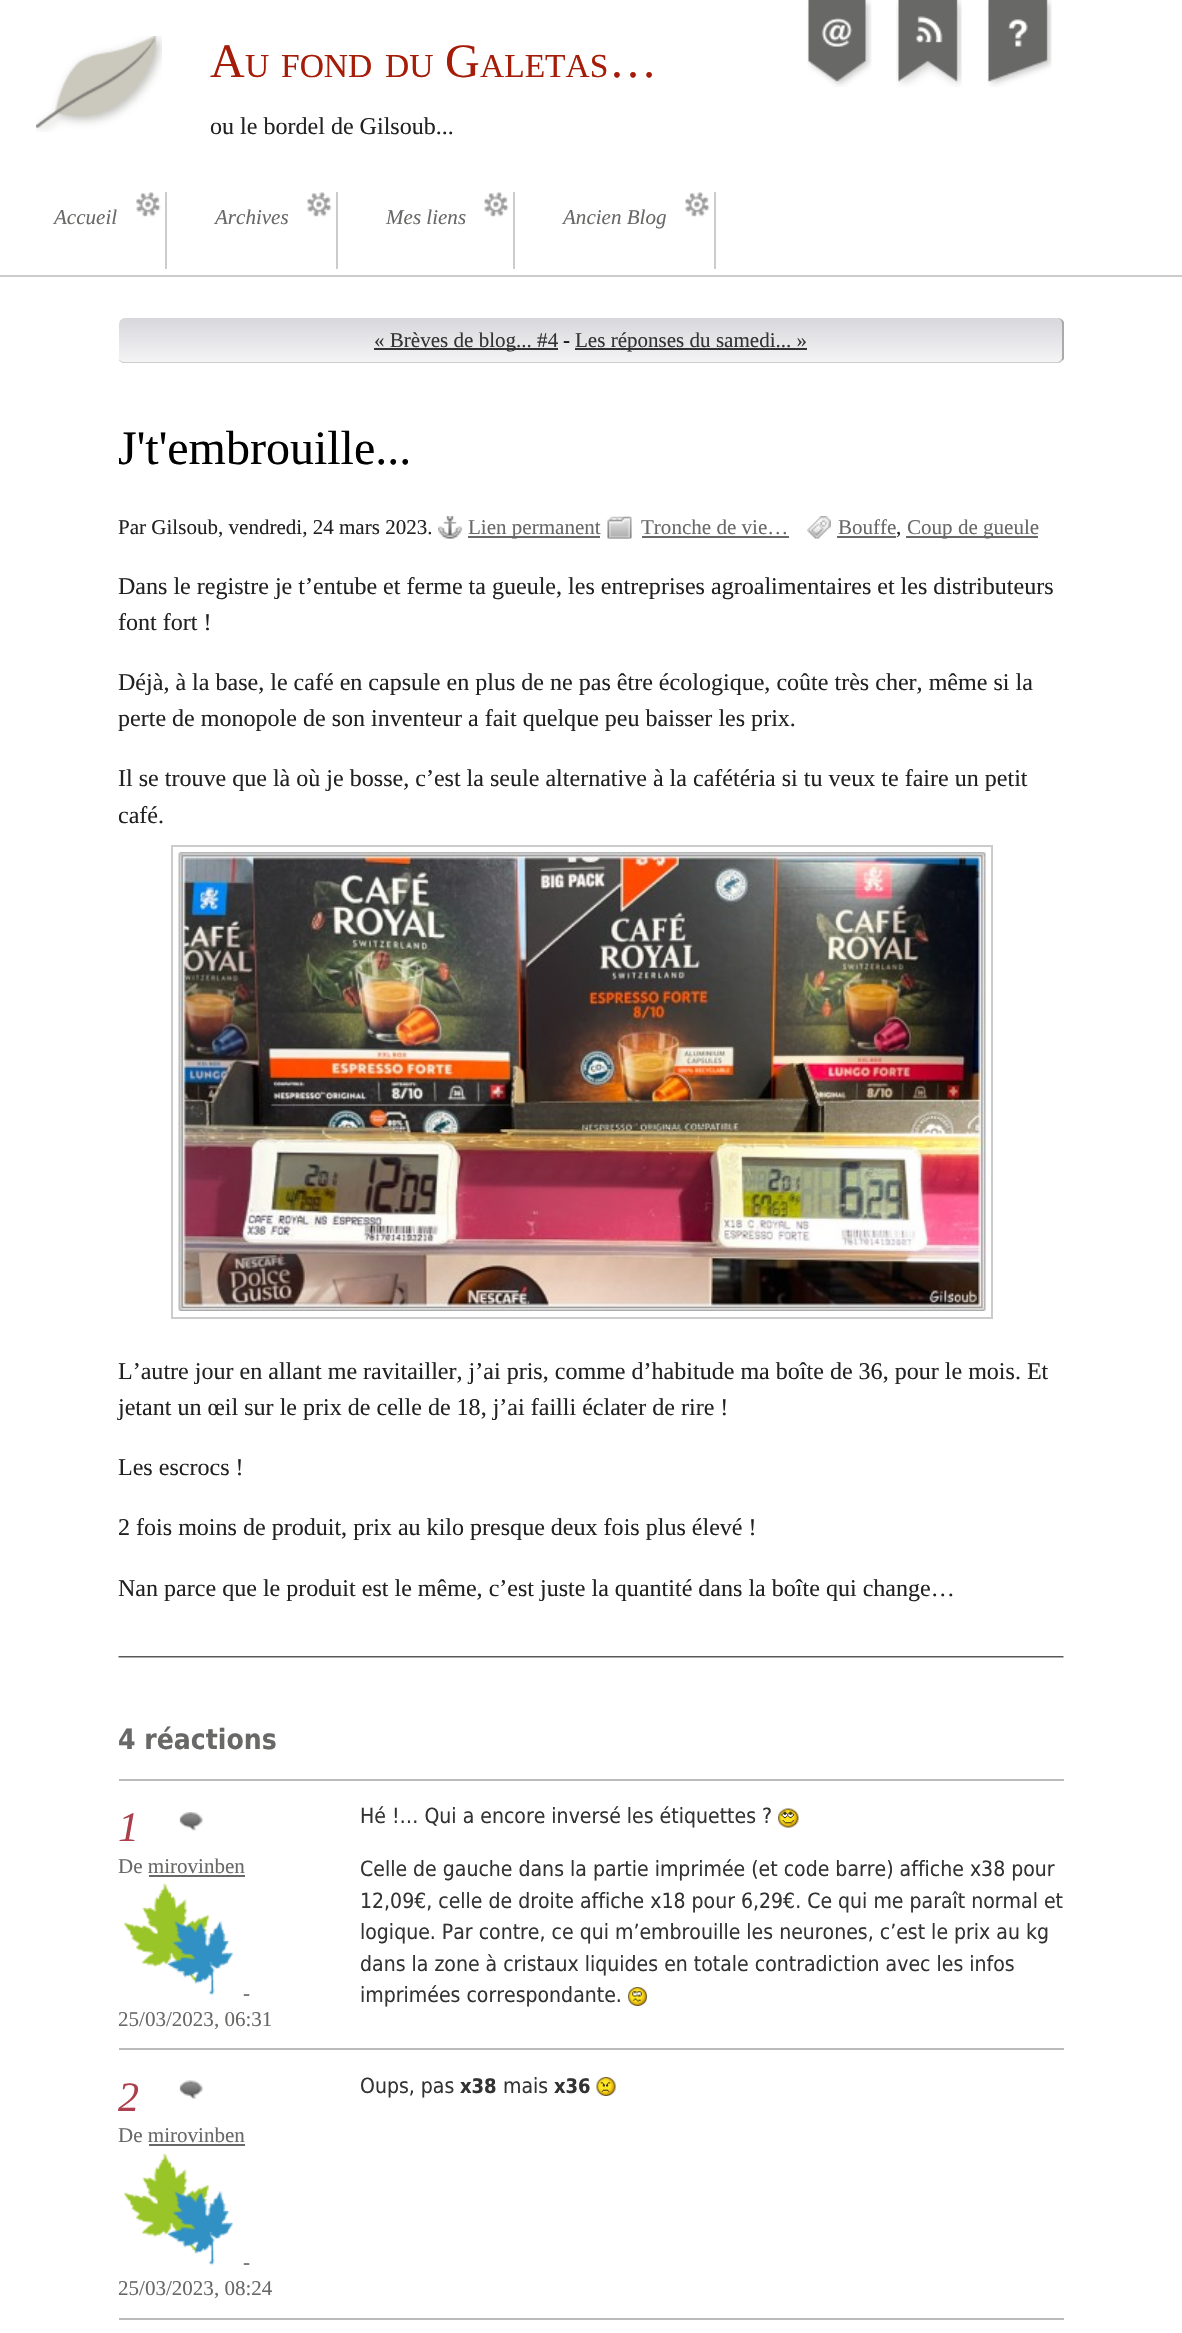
#include "include/core/SkBlurTypes.h"
#include "include/core/SkCanvas.h"
#include "include/core/SkData.h"
#include "include/core/SkFont.h"
#include "include/core/SkFontMgr.h"
#include "include/core/SkImage.h"
#include "include/core/SkMaskFilter.h"
#include "include/core/SkPaint.h"
#include "include/core/SkPathBuilder.h"
#include "include/core/SkTextBlob.h"
#include "include/effects/SkDashPathEffect.h"
#include "include/effects/SkGradientShader.h"
#include "include/utils/SkParsePath.h"

extern sk_sp<SkFontMgr> fontMgr;

void draw(SkCanvas* canvas) {
  SkPaint p;
  p.setAntiAlias(true);
  canvas->clear(SK_ColorWHITE);
  canvas->drawImageRect(SkImages::DeferredFromEncodedData(SkData::MakeFromFileName("images/1.png")), SkRect::MakeLTRB(36, 36, 162, 132), SkSamplingOptions());
  p.setColor(SkColorSetRGB(204, 204, 204));
  canvas->drawRect(SkRect::MakeLTRB(0, 275, 1182, 277), p);
  canvas->drawImageRect(SkImages::DeferredFromEncodedData(SkData::MakeFromFileName("images/2.png")), SkRect::MakeLTRB(136, 192, 161, 217), SkSamplingOptions());
  canvas->drawRect(SkRect::MakeLTRB(165, 192, 167, 269), p);
  canvas->drawImageRect(SkImages::DeferredFromEncodedData(SkData::MakeFromFileName("images/3.png")), SkRect::MakeLTRB(307, 192, 332, 217), SkSamplingOptions());
  canvas->drawRect(SkRect::MakeLTRB(336, 192, 338, 269), p);
  canvas->drawImageRect(SkImages::DeferredFromEncodedData(SkData::MakeFromFileName("images/3.png")), SkRect::MakeLTRB(484, 192, 509, 217), SkSamplingOptions());
  canvas->drawRect(SkRect::MakeLTRB(513, 192, 515, 269), p);
  canvas->drawImageRect(SkImages::DeferredFromEncodedData(SkData::MakeFromFileName("images/2.png")), SkRect::MakeLTRB(685, 192, 710, 217), SkSamplingOptions());
  canvas->drawRect(SkRect::MakeLTRB(714, 192, 716, 269), p);
  canvas->drawImageRect(SkImages::DeferredFromEncodedData(SkData::MakeFromFileName("images/4.png")), SkRect::MakeLTRB(807, 0, 872, 87), SkSamplingOptions());
  canvas->drawImageRect(SkImages::DeferredFromEncodedData(SkData::MakeFromFileName("images/5.png")), SkRect::MakeLTRB(896, 0, 962, 87), SkSamplingOptions());
  canvas->drawImageRect(SkImages::DeferredFromEncodedData(SkData::MakeFromFileName("images/6.png")), SkRect::MakeLTRB(987, 0, 1052, 87), SkSamplingOptions());
  canvas->save();
  canvas->clipPath(SkPathBuilder().moveTo(125, 318).lineTo(1058, 318).cubicTo(1061.5f, 318, 1064, 320.5f, 1064, 324).lineTo(1064, 357).cubicTo(1064, 360.5f, 1061.5f, 363, 1058, 363).lineTo(125, 363).cubicTo(121.5f, 363, 119, 360.5f, 119, 357).lineTo(119, 324).cubicTo(119, 320.5f, 121.5f, 318, 125, 318).close().detach(), true);
  {
    const SkColor colors[] = {SkColorSetRGB(244, 244, 245), SkColorSetRGB(215, 215, 220)};
    const float stops[] = {0, 1};
    const SkPoint ends[] = {{590, 362}, {590, 318}};
    p.setShader(SkGradientShader::MakeLinear(ends, colors, stops, 2, SkTileMode::kClamp));
    p.setAlpha(255);
  }
  canvas->drawPath(SkPathBuilder().moveTo(125, 318).lineTo(1058, 318).cubicTo(1061.5f, 318, 1064, 320.5f, 1064, 324).lineTo(1064, 362).lineTo(119, 362).lineTo(119, 324).cubicTo(119, 320.5f, 121.5f, 318, 125, 318).close().detach(), p);
  {
    const SkColor colors[] = {SkColorSetRGB(244, 244, 245), SkColorSetRGB(215, 215, 220)};
    const float stops[] = {0, 1};
    const SkPoint ends[] = {{590, 405}, {590, 362}};
    p.setShader(SkGradientShader::MakeLinear(ends, colors, stops, 2, SkTileMode::kClamp));
    p.setAlpha(255);
  }
  canvas->drawRect(SkRect::MakeLTRB(119, 362, 1064, 363), p);
  canvas->restore();
  p.setShader(nullptr);
  p.setColor(SkColorSetRGB(170, 170, 170));
  canvas->drawPath(SkPathBuilder().moveTo(1064, 322).cubicTo(1063, 320, 1060, 318, 1058, 318).cubicTo(1060, 318, 1062, 321, 1062, 324).lineTo(1062, 357).cubicTo(1062, 358, 1062, 359, 1061, 360).lineTo(1062, 361).lineTo(1064, 359).close().detach(), p);
  p.setColor(SkColorSetRGB(204, 204, 204));
  canvas->drawPath(SkPathBuilder().moveTo(118, 359).cubicTo(120, 360, 122, 362, 124, 362).lineTo(1058, 362).lineTo(1061, 360).lineTo(1062, 361).cubicTo(1061, 362, 1059, 363, 1058, 363).lineTo(124, 363).cubicTo(122, 363, 119, 361, 118, 359).close().detach(), p);
  p.setColor(SkColorSetRGB(51, 51, 51));
  canvas->drawRect(SkRect::MakeLTRB(374, 348, 558, 350), p);
  canvas->drawRect(SkRect::MakeLTRB(575, 348, 807, 350), p);
  canvas->drawImageRect(SkImages::DeferredFromEncodedData(SkData::MakeFromFileName("images/7.png")), SkRect::MakeLTRB(118, 1656, 1064, 1658), SkSamplingOptions());
  canvas->drawImageRect(SkImages::DeferredFromEncodedData(SkData::MakeFromFileName("images/8.png")), SkRect::MakeLTRB(438, 516, 463, 539), SkSamplingOptions());
  p.setColor(SkColorSetRGB(104, 104, 103));
  canvas->drawRect(SkRect::MakeLTRB(468, 536, 600, 538), p);
  canvas->drawImageRect(SkImages::DeferredFromEncodedData(SkData::MakeFromFileName("images/9.png")), SkRect::MakeLTRB(607, 516, 632, 539), SkSamplingOptions());
  canvas->drawRect(SkRect::MakeLTRB(642, 536, 789, 538), p);
  canvas->drawImageRect(SkImages::DeferredFromEncodedData(SkData::MakeFromFileName("images/10.png")), SkRect::MakeLTRB(807, 516, 831, 539), SkSamplingOptions());
  canvas->drawRect(SkRect::MakeLTRB(837, 536, 896, 538), p);
  canvas->drawRect(SkRect::MakeLTRB(906, 536, 1038, 538), p);
  p.setStyle(SkPaint::kStroke_Style);
  p.setStrokeWidth(2);
  p.setColor(SkColorSetRGB(204, 204, 204));
  canvas->drawRect(SkRect::MakeLTRB(172, 846, 992, 1318), p);
  canvas->drawImageRect(SkImages::DeferredFromEncodedData(SkData::MakeFromFileName("images/11.png")), SkRect::MakeLTRB(178, 852, 986, 1311), SkSamplingOptions());
  p.setStyle(SkPaint::kFill_Style);
  p.setColor(SkColorSetRGB(187, 187, 187));
  canvas->drawRect(SkRect::MakeLTRB(119, 1779, 1064, 1781), p);
  canvas->drawImageRect(SkImages::DeferredFromEncodedData(SkData::MakeFromFileName("images/12.png")), SkRect::MakeLTRB(179, 1812, 203, 1831), SkSamplingOptions());
  p.setColor(SkColorSetRGB(104, 104, 103));
  canvas->drawRect(SkRect::MakeLTRB(149, 1875, 245, 1877), p);
  canvas->drawImageRect(SkImages::DeferredFromEncodedData(SkData::MakeFromFileName("images/13.png")), SkRect::MakeLTRB(124, 1883, 233, 1996), SkSamplingOptions());
  canvas->drawImageRect(SkImages::DeferredFromEncodedData(SkData::MakeFromFileName("images/14.png")), SkRect::MakeLTRB(778, 1808, 799, 1828), SkSamplingOptions());
  canvas->drawImageRect(SkImages::DeferredFromEncodedData(SkData::MakeFromFileName("images/15.png")), SkRect::MakeLTRB(628, 1987, 647, 2006), SkSamplingOptions());
  p.setColor(SkColorSetRGB(187, 187, 187));
  canvas->drawRect(SkRect::MakeLTRB(119, 2048, 1064, 2050), p);
  canvas->drawImageRect(SkImages::DeferredFromEncodedData(SkData::MakeFromFileName("images/16.png")), SkRect::MakeLTRB(179, 2080, 203, 2099), SkSamplingOptions());
  p.setColor(SkColorSetRGB(104, 104, 103));
  canvas->drawRect(SkRect::MakeLTRB(149, 2144, 245, 2146), p);
  canvas->drawImageRect(SkImages::DeferredFromEncodedData(SkData::MakeFromFileName("images/13.png")), SkRect::MakeLTRB(124, 2153, 233, 2266), SkSamplingOptions());
  canvas->drawImageRect(SkImages::DeferredFromEncodedData(SkData::MakeFromFileName("images/17.png")), SkRect::MakeLTRB(596, 2077, 616, 2096), SkSamplingOptions());
  p.setColor(SkColorSetRGB(187, 187, 187));
  canvas->drawRect(SkRect::MakeLTRB(119, 2318, 1064, 2320), p);
  SkFont font1(fontMgr->matchFamilyStyle("Liberation Serif", SkFontStyle::Normal()), 48);
  font1.setSubpixel(true);
  p.setColor(SkColorSetRGB(165, 29, 9));
  canvas->drawString("A", 210, 77, font1, p);
  SkFont font2(fontMgr->matchFamilyStyle("Liberation Serif", SkFontStyle::Normal()), 33.5f);
  font2.setSubpixel(true);
  canvas->drawString("U", 245, 77, font2, p);
  canvas->drawString("FOND", 281, 77, font2, p);
  canvas->drawString("DU", 385, 77, font2, p);
  canvas->drawString("G", 445, 77, font1, p);
  canvas->drawString("ALETAS", 480, 77, font2, p);
  canvas->drawString("…", 609, 77, font1, p);
  SkFont font3(fontMgr->matchFamilyStyle("Liberation Serif", SkFontStyle::Normal()), 24.05f);
  font3.setSubpixel(true);
  p.setColor(SkColorSetRGB(34, 34, 34));
  canvas->drawString("ou le bordel de Gilsoub...", 210, 134, font3, p);
  SkFont font4(fontMgr->matchFamilyStyle("Liberation Serif", SkFontStyle::Italic()), 21.05f);
  font4.setSubpixel(true);
  p.setColor(SkColorSetRGB(104, 104, 103));
  canvas->drawString("Accueil", 54, 224, font4, p);
  canvas->drawString("Archives", 215, 224, font4, p);
  canvas->drawString("Mes liens", 386, 224, font4, p);
  canvas->drawString("Ancien Blog", 563, 224, font4, p);
  SkFont font5(fontMgr->matchFamilyStyle("Liberation Serif", SkFontStyle::Normal()), 21.05f);
  font5.setSubpixel(true);
  p.setColor(SkColorSetRGB(51, 51, 51));
  canvas->drawString("« Brèves de blog... #4", 374, 347, font5, p);
  p.setColor(SK_ColorBLACK);
  canvas->drawString("-", 563, 347, font5, p);
  p.setColor(SkColorSetRGB(51, 51, 51));
  canvas->drawString("Les réponses du samedi... »", 575, 347, font5, p);
  p.setColor(SK_ColorBLACK);
  canvas->drawString("J't'embrouille...", 118, 464, font1, p);
  p.setColor(SkColorSetRGB(34, 34, 34));
  canvas->drawString("Par Gilsoub, vendredi, 24 mars 2023.", 118, 534, font5, p);
  p.setColor(SkColorSetRGB(104, 104, 103));
  canvas->drawString("Lien permanent", 468, 534, font5, p);
  canvas->drawString("Tronche de vie…", 641, 534, font5, p);
  canvas->drawString("Bouffe", 838, 534, font5, p);
  p.setColor(SkColorSetRGB(34, 34, 34));
  canvas->drawString(",", 896, 534, font5, p);
  p.setColor(SkColorSetRGB(104, 104, 103));
  canvas->drawString("Coup de gueule", 907, 534, font5, p);
  p.setColor(SkColorSetRGB(34, 34, 34));
  canvas->drawString("Dans le registre je t’entube et ferme ta gueule, les entreprises agroalimentaires et les distributeurs", 118, 594, font3, p);
  canvas->drawString("font fort !", 118, 630, font3, p);
  canvas->drawString("Déjà, à la base, le café en capsule en plus de ne pas être écologique, coûte très cher, même si la", 118, 690, font3, p);
  canvas->drawString("perte de monopole de son inventeur a fait quelque peu baisser les prix.", 118, 726, font3, p);
  canvas->drawString("Il se trouve que là où je bosse, c’est la seule alternative à la cafétéria si tu veux te faire un petit", 118, 786, font3, p);
  canvas->drawString("café.", 118, 823, font3, p);
  canvas->drawString("L’autre jour en allant me ravitailler, j’ai pris, comme d’habitude ma boîte de 36, pour le mois. Et", 118, 1379, font3, p);
  canvas->drawString("jetant un œil sur le prix de celle de 18, j’ai failli éclater de rire !", 118, 1415, font3, p);
  canvas->drawString("Les escrocs !", 118, 1475, font3, p);
  canvas->drawString("2 fois moins de produit, prix au kilo presque deux fois plus élevé !", 118, 1535, font3, p);
  canvas->drawString("Nan parce que le produit est le même, c’est juste la quantité dans la boîte qui change…", 118, 1596, font3, p);
  SkFont font6(fontMgr->matchFamilyStyle("DejaVu Sans", SkFontStyle::Bold()), 28);
  font6.setSubpixel(true);
  p.setColor(SkColorSetRGB(104, 104, 103));
  canvas->drawString("4 réactions", 118, 1749, font6, p);
  SkFont font7(fontMgr->matchFamilyStyle("Liberation Serif", SkFontStyle::Italic()), 42);
  font7.setSubpixel(true);
  p.setColor(SkColorSetRGB(173, 63, 76));
  canvas->drawString("1", 118, 1841, font7, p);
  p.setColor(SkColorSetRGB(104, 104, 103));
  canvas->drawString("De mirovinben", 118, 1873, font5, p);
  canvas->drawString("-", 243, 2000, font5, p);
  canvas->drawString("25/03/2023, 06:31", 118, 2026, font5, p);
  SkFont font8(fontMgr->matchFamilyStyle("DejaVu Sans", SkFontStyle::Normal()), 21.05f);
  font8.setSubpixel(true);
  p.setColor(SkColorSetRGB(51, 51, 51));
  canvas->drawString("Hé !… Qui a encore inversé les étiquettes ?", 360, 1823, font8, p);
  canvas->drawString("Celle de gauche dans la partie imprimée (et code barre) affiche x38 pour", 360, 1876, font8, p);
  canvas->drawString("12,09€, celle de droite affiche x18 pour 6,29€. Ce qui me paraît normal et", 360, 1908, font8, p);
  canvas->drawString("logique. Par contre, ce qui m’embrouille les neurones, c’est le prix au kg", 360, 1939, font8, p);
  canvas->drawString("dans la zone à cristaux liquides en totale contradiction avec les infos", 360, 1971, font8, p);
  canvas->drawString("imprimées correspondante.", 360, 2002, font8, p);
  p.setColor(SkColorSetRGB(173, 63, 76));
  canvas->drawString("2", 118, 2111, font7, p);
  p.setColor(SkColorSetRGB(104, 104, 103));
  canvas->drawString("De mirovinben", 118, 2142, font5, p);
  canvas->drawString("-", 243, 2269, font5, p);
  canvas->drawString("25/03/2023, 08:24", 118, 2295, font5, p);
  p.setColor(SkColorSetRGB(51, 51, 51));
  canvas->drawString("Oups, pas", 360, 2093, font8, p);
  SkFont font9(fontMgr->matchFamilyStyle("DejaVu Sans", SkFontStyle::Bold()), 20);
  font9.setSubpixel(true);
  canvas->drawString("x38", 460, 2093, font9, p);
  canvas->drawString("mais", 503, 2093, font8, p);
  canvas->drawString("x36", 554, 2093, font9, p);
}
